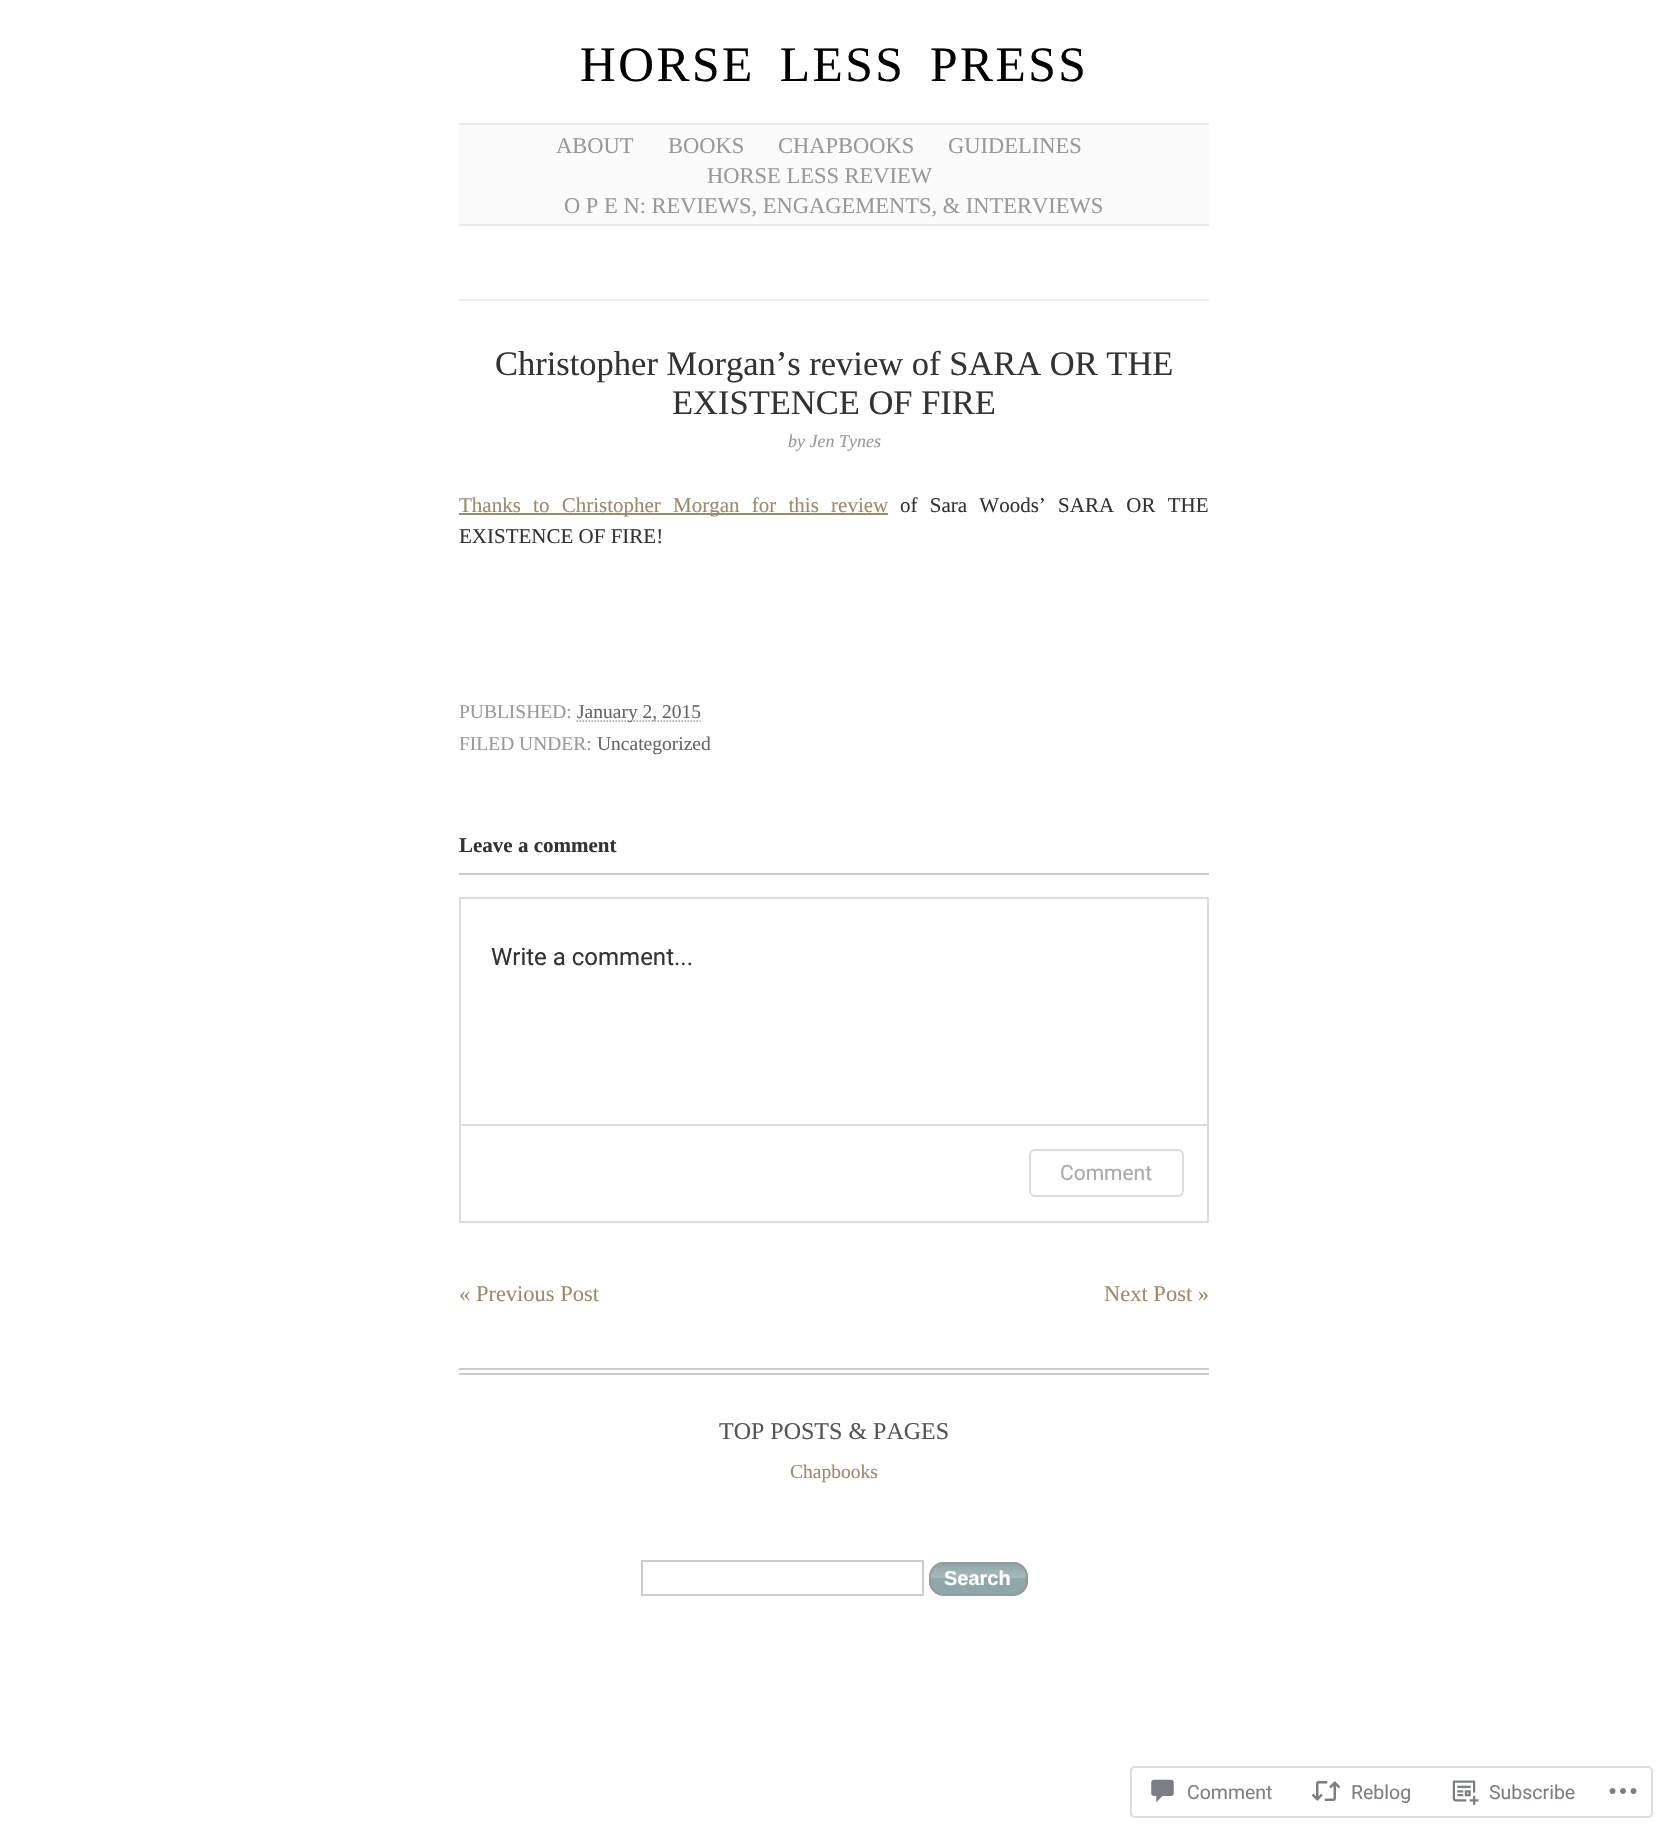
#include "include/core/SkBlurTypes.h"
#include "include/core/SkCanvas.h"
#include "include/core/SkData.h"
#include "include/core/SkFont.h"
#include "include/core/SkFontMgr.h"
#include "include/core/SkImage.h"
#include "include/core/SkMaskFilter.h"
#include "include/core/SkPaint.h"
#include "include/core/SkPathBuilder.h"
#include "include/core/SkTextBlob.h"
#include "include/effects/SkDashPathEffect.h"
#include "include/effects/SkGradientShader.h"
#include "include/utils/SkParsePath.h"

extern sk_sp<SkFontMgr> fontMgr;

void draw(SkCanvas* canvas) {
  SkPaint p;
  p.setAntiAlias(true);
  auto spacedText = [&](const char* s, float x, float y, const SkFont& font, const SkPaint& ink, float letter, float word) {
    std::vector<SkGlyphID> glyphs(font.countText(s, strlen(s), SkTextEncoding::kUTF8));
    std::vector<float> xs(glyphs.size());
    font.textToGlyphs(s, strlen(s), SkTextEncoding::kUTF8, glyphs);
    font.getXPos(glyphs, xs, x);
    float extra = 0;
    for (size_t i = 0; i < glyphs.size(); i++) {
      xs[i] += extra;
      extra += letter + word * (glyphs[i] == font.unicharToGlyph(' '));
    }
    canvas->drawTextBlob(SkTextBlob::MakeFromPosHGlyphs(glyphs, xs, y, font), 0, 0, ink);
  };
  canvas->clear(SK_ColorWHITE);
  p.setColor(SkColorSetRGB(251, 251, 251));
  canvas->drawRect(SkRect::MakeLTRB(459, 125, 1209, 224), p);
  p.setColor(SkColorSetRGB(234, 234, 234));
  canvas->drawRect(SkRect::MakeLTRB(459, 123, 1209, 125), p);
  canvas->drawRect(SkRect::MakeLTRB(459, 224, 1209, 226), p);
  p.setColor(SkColorSetRGB(239, 239, 239));
  canvas->drawRect(SkRect::MakeLTRB(459, 299, 1209, 301), p);
  p.setColor(SkColorSetRGB(156, 138, 106));
  canvas->drawRect(SkRect::MakeLTRB(459, 513, 888, 515), p);
  p.setStyle(SkPaint::kStroke_Style);
  p.setStrokeWidth(1.5f);
  p.setColor(SkColorSetRGB(153, 153, 153));
  p.setPathEffect(SkDashPathEffect::Make({{1.5f, 1.5f}}, 0));
  canvas->drawPath(SkPathBuilder().moveTo(576.5f, 721).lineTo(700.5f, 721).detach(), p);
  p.setPathEffect(nullptr);
  p.setStyle(SkPaint::kFill_Style);
  p.setColor(SkColorSetRGB(204, 204, 204));
  canvas->drawRect(SkRect::MakeLTRB(459, 873, 1209, 875), p);
  p.setStyle(SkPaint::kStroke_Style);
  p.setStrokeWidth(2);
  p.setColor(SkColorSetRGB(220, 220, 222));
  canvas->drawRect(SkRect::MakeLTRB(460, 898, 1208, 1222), p);
  p.setStyle(SkPaint::kFill_Style);
  canvas->drawRect(SkRect::MakeLTRB(461, 1124, 1208, 1126), p);
  p.setStyle(SkPaint::kStroke_Style);
  canvas->drawRoundRect(SkRect::MakeLTRB(1030, 1150, 1183, 1196), 5, 5, p);
  p.setStyle(SkPaint::kFill_Style);
  p.setColor(SkColorSetRGB(204, 204, 204));
  canvas->drawRect(SkRect::MakeLTRB(459, 1368, 1209, 1370), p);
  canvas->drawRect(SkRect::MakeLTRB(459, 1373, 1209, 1375), p);
  p.setStyle(SkPaint::kStroke_Style);
  canvas->drawRect(SkRect::MakeLTRB(642, 1561, 923, 1595), p);
  p.setStyle(SkPaint::kFill_Style);
  p.setColor(SkColorSetRGB(142, 167, 170));
  canvas->drawRoundRect(SkRect::MakeLTRB(929, 1562, 1028, 1596), 15, 15, p);
  canvas->drawImageRect(SkImages::DeferredFromEncodedData(SkData::MakeFromFileName("images/1.png")), SkRect::MakeLTRB(929, 1566, 1028, 1578), SkSamplingOptions());
  p.setStyle(SkPaint::kStroke_Style);
  p.setColor(SkColorSetRGB(153, 153, 153));
  canvas->drawRoundRect(SkRect::MakeLTRB(930, 1563, 1027, 1595), 14, 14, p);
  p.setColor(SkColorSetRGB(221, 221, 223));
  canvas->drawRoundRect(SkRect::MakeLTRB(1131, 1767, 1652, 1817), 4, 4, p);
  canvas->drawImageRect(SkImages::DeferredFromEncodedData(SkData::MakeFromFileName("images/2.png")), SkRect::MakeLTRB(1151, 1779, 1174, 1803), SkSamplingOptions());
  canvas->drawImageRect(SkImages::DeferredFromEncodedData(SkData::MakeFromFileName("images/3.png")), SkRect::MakeLTRB(1311, 1781, 1341, 1801), SkSamplingOptions());
  canvas->drawImageRect(SkImages::DeferredFromEncodedData(SkData::MakeFromFileName("images/4.png")), SkRect::MakeLTRB(1452, 1780, 1479, 1805), SkSamplingOptions());
  canvas->drawImageRect(SkImages::DeferredFromEncodedData(SkData::MakeFromFileName("images/5.png")), SkRect::MakeLTRB(1609, 1788, 1637, 1794), SkSamplingOptions());
  SkFont font1(fontMgr->matchFamilyStyle("Liberation Serif", SkFontStyle::Normal()), 49.5f);
  font1.setSubpixel(true);
  p.setStyle(SkPaint::kFill_Style);
  p.setColor(SK_ColorBLACK);
  spacedText("HORSE LESS PRESS", 580, 81, font1, p, 2.5f, 10);
  SkFont font2(fontMgr->matchFamilyStyle("Liberation Serif", SkFontStyle::Normal()), 22.5f);
  font2.setSubpixel(true);
  p.setColor(SkColorSetRGB(153, 153, 153));
  canvas->drawString("ABOUT", 556, 153, font2, p);
  canvas->drawString("BOOKS", 668, 153, font2, p);
  canvas->drawString("CHAPBOOKS", 778, 153, font2, p);
  canvas->drawString("GUIDELINES", 948, 153, font2, p);
  canvas->drawString("HORSE LESS REVIEW", 707, 183, font2, p);
  canvas->drawString("O P E N: REVIEWS, ENGAGEMENTS, & INTERVIEWS", 564, 213, font2, p);
  SkFont font3(fontMgr->matchFamilyStyle("Liberation Serif", SkFontStyle::Normal()), 34.5f);
  font3.setSubpixel(true);
  p.setColor(SkColorSetRGB(51, 51, 51));
  canvas->drawString("Christopher Morgan’s review of SARA OR THE", 495, 375, font3, p);
  canvas->drawString("EXISTENCE OF FIRE", 672, 414, font3, p);
  SkFont font4(fontMgr->matchFamilyStyle("Liberation Serif", SkFontStyle::Italic()), 18);
  font4.setSubpixel(true);
  p.setColor(SkColorSetRGB(153, 153, 153));
  canvas->drawString("by Jen Tynes", 788, 447, font4, p);
  SkFont font5(fontMgr->matchFamilyStyle("Liberation Serif", SkFontStyle::Normal()), 21);
  font5.setSubpixel(true);
  p.setColor(SkColorSetRGB(156, 138, 106));
  spacedText("Thanks to Christopher Morgan for this review", 459, 512, font5, p, 0, 7);
  p.setColor(SkColorSetRGB(51, 51, 51));
  spacedText("of Sara Woods’ SARA OR THE", 900, 512, font5, p, 0, 7);
  canvas->drawString("EXISTENCE OF FIRE!", 459, 543, font5, p);
  SkFont font6(fontMgr->matchFamilyStyle("Liberation Serif", SkFontStyle::Normal()), 19.5f);
  font6.setSubpixel(true);
  p.setColor(SkColorSetRGB(153, 153, 153));
  canvas->drawString("PUBLISHED:", 459, 718, font6, p);
  p.setColor(SkColorSetRGB(102, 102, 102));
  canvas->drawString("January 2, 2015", 577, 718, font6, p);
  p.setColor(SkColorSetRGB(153, 153, 153));
  canvas->drawString("FILED UNDER:", 459, 750, font6, p);
  p.setColor(SkColorSetRGB(102, 102, 102));
  canvas->drawString("Uncategorized", 597, 750, font6, p);
  SkFont font7(fontMgr->matchFamilyStyle("Liberation Serif", SkFontStyle::Bold()), 21);
  font7.setSubpixel(true);
  p.setColor(SkColorSetRGB(51, 51, 51));
  canvas->drawString("Leave a comment", 459, 852, font7, p);
  SkFont font8(fontMgr->matchFamilyStyle("Roboto", SkFontStyle::Normal()), 24);
  font8.setSubpixel(true);
  canvas->drawString("Write a comment...", 491, 965, font8, p);
  SkFont font9(fontMgr->matchFamilyStyle("Roboto", SkFontStyle::Normal()), 21);
  font9.setSubpixel(true);
  p.setColor(SkColorSetRGB(167, 170, 173));
  canvas->drawString("Comment", 1060, 1180, font9, p);
  p.setColor(SkColorSetRGB(156, 138, 106));
  canvas->drawString("« Previous Post", 459, 1301, font2, p);
  canvas->drawString("Next Post »", 1104, 1301, font2, p);
  SkFont font10(fontMgr->matchFamilyStyle("Liberation Serif", SkFontStyle::Normal()), 24);
  font10.setSubpixel(true);
  p.setColor(SkColorSetRGB(85, 85, 85));
  canvas->drawString("TOP POSTS & PAGES", 719, 1439, font10, p);
  p.setColor(SkColorSetRGB(156, 138, 106));
  canvas->drawString("Chapbooks", 790, 1478, font6, p);
  SkFont font11(fontMgr->matchFamilyStyle("Liberation Sans", SkFontStyle::Bold()), 20);
  font11.setSubpixel(true);
  p.setColor(SK_ColorWHITE);
  canvas->drawString("Search", 944, 1585, font11, p);
  SkFont font12(fontMgr->matchFamilyStyle("Roboto", SkFontStyle::Normal()), 19.5f);
  font12.setSubpixel(true);
  p.setColor(SkColorSetRGB(123, 127, 133));
  canvas->drawString("Comment", 1187, 1799, font12, p);
  canvas->drawString("Reblog", 1351, 1799, font12, p);
  canvas->drawString("Subscribe", 1489, 1799, font12, p);
}
